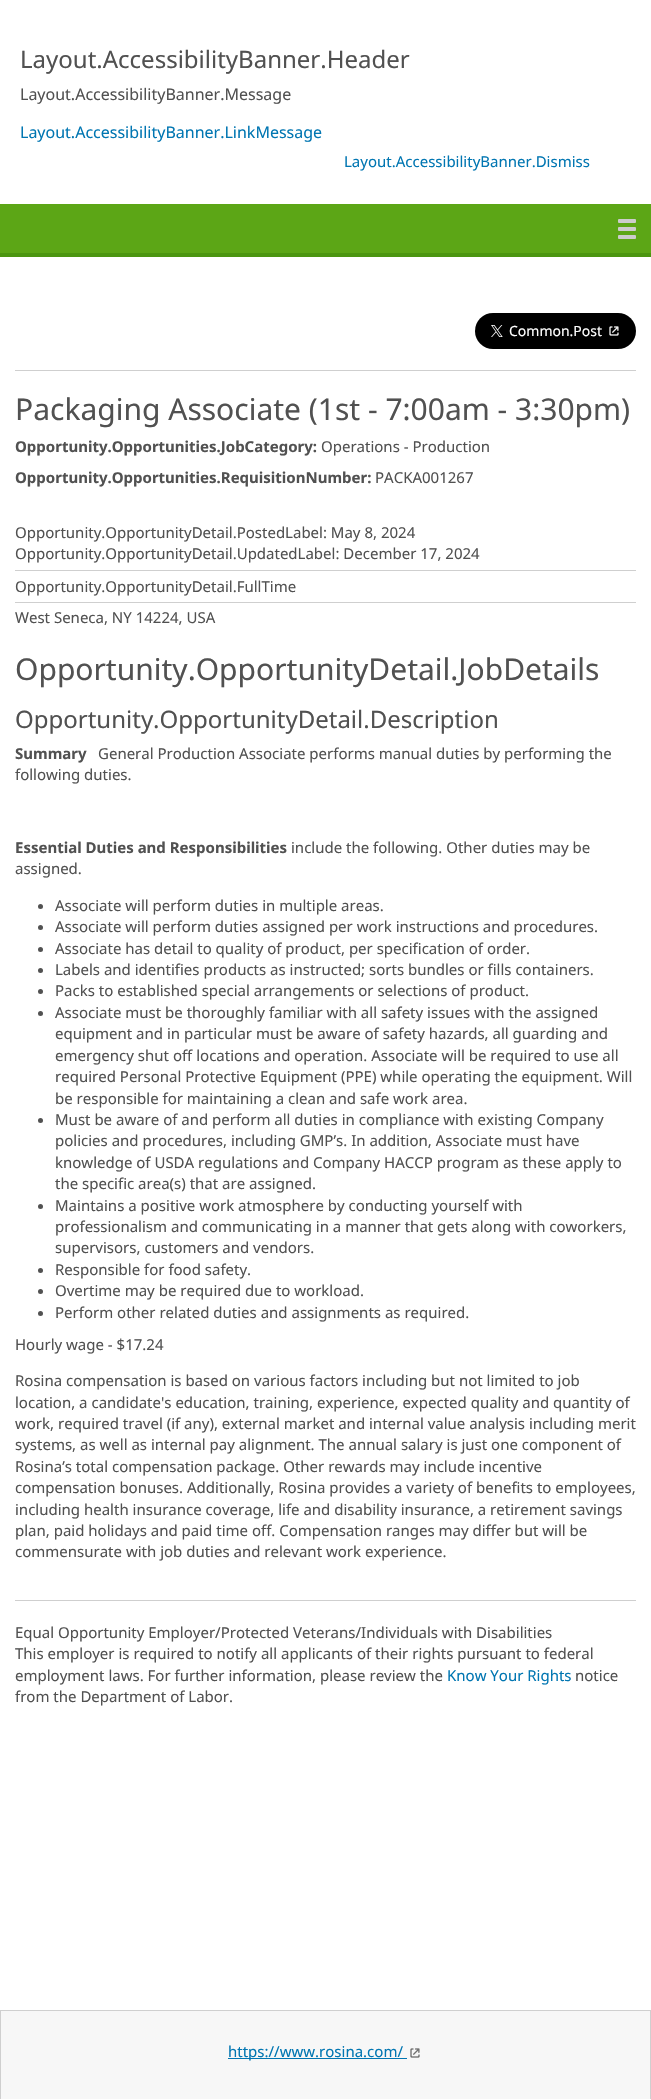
#include "include/core/SkBlurTypes.h"
#include "include/core/SkCanvas.h"
#include "include/core/SkData.h"
#include "include/core/SkFont.h"
#include "include/core/SkFontMgr.h"
#include "include/core/SkImage.h"
#include "include/core/SkMaskFilter.h"
#include "include/core/SkPaint.h"
#include "include/core/SkPathBuilder.h"
#include "include/core/SkTextBlob.h"
#include "include/effects/SkDashPathEffect.h"
#include "include/effects/SkGradientShader.h"
#include "include/utils/SkParsePath.h"

extern sk_sp<SkFontMgr> fontMgr;

void draw(SkCanvas* canvas) {
  SkPaint p;
  p.setAntiAlias(true);
  canvas->clear(SK_ColorWHITE);
  p.setColor(SkColorSetRGB(92, 166, 22));
  canvas->drawRect(SkRect::MakeLTRB(0, 204, 651, 253), p);
  p.setColor(SkColorSetRGB(75, 149, 16));
  canvas->drawRect(SkRect::MakeLTRB(0, 253, 651, 257), p);
  p.setColor(SkColorSetRGB(204, 204, 204));
  canvas->drawRoundRect(SkRect::MakeLTRB(618, 219, 636, 223), 1, 1, p);
  canvas->drawRoundRect(SkRect::MakeLTRB(618, 227, 636, 231), 1, 1, p);
  canvas->drawRoundRect(SkRect::MakeLTRB(618, 235, 636, 239), 1, 1, p);
  p.setColor(SK_ColorBLACK);
  canvas->drawRoundRect(SkRect::MakeLTRB(475, 313, 636, 349), 18, 18, p);
  canvas->drawImageRect(SkImages::DeferredFromEncodedData(SkData::MakeFromFileName("images/1.png")), SkRect::MakeLTRB(491, 325, 503, 337), SkSamplingOptions());
  canvas->drawImageRect(SkImages::DeferredFromEncodedData(SkData::MakeFromFileName("images/2.png")), SkRect::MakeLTRB(609, 326, 619, 336), SkSamplingOptions());
  p.setColor(SkColorSetRGB(207, 207, 207));
  canvas->drawRect(SkRect::MakeLTRB(15, 370, 636, 371), p);
  canvas->drawRect(SkRect::MakeLTRB(15, 570, 636, 571), p);
  canvas->drawRect(SkRect::MakeLTRB(15, 602, 636, 603), p);
  p.setColor(SkColorSetRGB(81, 81, 81));
  canvas->drawCircle(40.5f, 906.5f, 2.5f, p);
  canvas->drawCircle(40.5f, 927.5f, 2.5f, p);
  canvas->drawCircle(40.5f, 949.5f, 2.5f, p);
  canvas->drawCircle(40.5f, 970.5f, 2.5f, p);
  canvas->drawCircle(40.5f, 991.5f, 2.5f, p);
  canvas->drawCircle(40.5f, 1013.5f, 2.5f, p);
  canvas->drawCircle(40.5f, 1120.5f, 2.5f, p);
  canvas->drawCircle(40.5f, 1206.5f, 2.5f, p);
  canvas->drawCircle(40.5f, 1270.5f, 2.5f, p);
  canvas->drawCircle(40.5f, 1291.5f, 2.5f, p);
  canvas->drawCircle(40.5f, 1313.5f, 2.5f, p);
  p.setColor(SkColorSetRGB(207, 207, 207));
  canvas->drawRect(SkRect::MakeLTRB(15, 1600, 636, 1601), p);
  p.setColor(SkColorSetRGB(247, 247, 247));
  canvas->drawRect(SkRect::MakeLTRB(1, 2011, 650, 2099), p);
  p.setColor(SkColorSetRGB(207, 207, 207));
  canvas->drawRect(SkRect::MakeLTRB(0, 2010, 651, 2011), p);
  canvas->drawRect(SkRect::MakeLTRB(650, 2010, 651, 2099), p);
  canvas->drawRect(SkRect::MakeLTRB(0, 2010, 1, 2099), p);
  p.setColor(SkColorSetRGB(1, 118, 178));
  canvas->drawRect(SkRect::MakeLTRB(228, 2058, 407, 2059), p);
  canvas->drawImageRect(SkImages::DeferredFromEncodedData(SkData::MakeFromFileName("images/3.png")), SkRect::MakeLTRB(410, 2048, 420, 2058), SkSamplingOptions());
  SkFont font1(fontMgr->matchFamilyStyle("Noto Sans", SkFontStyle::Normal()), 24);
  font1.setSubpixel(true);
  p.setColor(SkColorSetRGB(81, 81, 81));
  canvas->drawString("Layout.AccessibilityBanner.Header", 20, 68, font1, p);
  SkFont font2(fontMgr->matchFamilyStyle("Noto Sans", SkFontStyle::Normal()), 16);
  font2.setSubpixel(true);
  canvas->drawString("Layout.AccessibilityBanner.Message", 20, 100, font2, p);
  p.setColor(SkColorSetRGB(1, 118, 178));
  canvas->drawString("Layout.AccessibilityBanner.LinkMessage", 20, 138, font2, p);
  SkFont font3(fontMgr->matchFamilyStyle("Noto Sans", SkFontStyle::Normal()), 15);
  font3.setSubpixel(true);
  canvas->drawString("Layout.AccessibilityBanner.Dismiss", 344, 167, font3, p);
  SkFont font4(fontMgr->matchFamilyStyle("Noto Sans", SkFontStyle::Normal()), 14);
  font4.setSubpixel(true);
  p.setColor(SK_ColorWHITE);
  canvas->drawString("Common.Post", 509, 336, font4, p);
  SkFont font5(fontMgr->matchFamilyStyle("Noto Sans", SkFontStyle::Normal()), 30);
  font5.setSubpixel(true);
  p.setColor(SkColorSetRGB(81, 81, 81));
  canvas->drawString("Packaging Associate (1st - 7:00am - 3:30pm)", 15, 420, font5, p);
  SkFont font6(fontMgr->matchFamilyStyle("Noto Sans", SkFontStyle::Bold()), 15);
  font6.setSubpixel(true);
  canvas->drawString("Opportunity.Opportunities.JobCategory:", 15, 452, font6, p);
  canvas->drawString("Operations - Production", 321, 452, font3, p);
  canvas->drawString("Opportunity.Opportunities.RequisitionNumber:", 15, 483, font6, p);
  canvas->drawString("PACKA001267", 375, 483, font3, p);
  canvas->drawString("Opportunity.OpportunityDetail.PostedLabel: May 8, 2024", 15, 538, font3, p);
  canvas->drawString("Opportunity.OpportunityDetail.UpdatedLabel: December 17, 2024", 15, 559, font3, p);
  canvas->drawString("Opportunity.OpportunityDetail.FullTime", 15, 592, font3, p);
  canvas->drawString("West Seneca, NY 14224, USA", 15, 623, font3, p);
  canvas->drawString("Opportunity.OpportunityDetail.JobDetails", 15, 680, font5, p);
  canvas->drawString("Opportunity.OpportunityDetail.Description", 15, 728, font1, p);
  canvas->drawString("Summary", 15, 759, font6, p);
  canvas->drawString("General Production Associate performs manual duties by performing the", 98, 759, font3, p);
  canvas->drawString("following duties.", 15, 780, font3, p);
  canvas->drawString("Essential Duties and Responsibilities", 15, 853, font6, p);
  canvas->drawString("include the following. Other duties may be", 291, 853, font3, p);
  canvas->drawString("assigned.", 15, 874, font3, p);
  canvas->drawString("Associate will perform duties in multiple areas.", 55, 911, font3, p);
  canvas->drawString("Associate will perform duties assigned per work instructions and procedures.", 55, 932, font3, p);
  canvas->drawString("Associate has detail to quality of product, per specification of order.", 55, 954, font3, p);
  canvas->drawString("Labels and identifies products as instructed; sorts bundles or fills containers.", 55, 975, font3, p);
  canvas->drawString("Packs to established special arrangements or selections of product.", 55, 996, font3, p);
  canvas->drawString("Associate must be thoroughly familiar with all safety issues with the assigned", 55, 1018, font3, p);
  canvas->drawString("equipment and in particular must be aware of safety hazards, all guarding and", 55, 1039, font3, p);
  canvas->drawString("emergency shut off locations and operation. Associate will be required to use all", 55, 1061, font3, p);
  canvas->drawString("required Personal Protective Equipment (PPE) while operating the equipment. Will", 55, 1082, font3, p);
  canvas->drawString("be responsible for maintaining a clean and safe work area.", 55, 1104, font3, p);
  canvas->drawString("Must be aware of and perform all duties in compliance with existing Company", 55, 1125, font3, p);
  canvas->drawString("policies and procedures, including GMP’s. In addition, Associate must have", 55, 1146, font3, p);
  canvas->drawString("knowledge of USDA regulations and Company HACCP program as these apply to", 55, 1168, font3, p);
  canvas->drawString("the specific area(s) that are assigned.", 55, 1189, font3, p);
  canvas->drawString("Maintains a positive work atmosphere by conducting yourself with", 55, 1211, font3, p);
  canvas->drawString("professionalism and communicating in a manner that gets along with coworkers,", 55, 1232, font3, p);
  canvas->drawString("supervisors, customers and vendors.", 55, 1253, font3, p);
  canvas->drawString("Responsible for food safety.", 55, 1275, font3, p);
  canvas->drawString("Overtime may be required due to workload.", 55, 1296, font3, p);
  canvas->drawString("Perform other related duties and assignments as required.", 55, 1318, font3, p);
  canvas->drawString("Hourly wage - $17.24", 15, 1350, font3, p);
  canvas->drawString("Rosina compensation is based on various factors including but not limited to job", 15, 1386, font3, p);
  canvas->drawString("location, a candidate's education, training, experience, expected quality and quantity of", 15, 1408, font3, p);
  canvas->drawString("work, required travel (if any), external market and internal value analysis including merit", 15, 1429, font3, p);
  canvas->drawString("systems, as well as internal pay alignment. The annual salary is just one component of", 15, 1450, font3, p);
  canvas->drawString("Rosina’s total compensation package. Other rewards may include incentive", 15, 1472, font3, p);
  canvas->drawString("compensation bonuses. Additionally, Rosina provides a variety of benefits to employees,", 15, 1493, font3, p);
  canvas->drawString("including health insurance coverage, life and disability insurance, a retirement savings", 15, 1515, font3, p);
  canvas->drawString("plan, paid holidays and paid time off. Compensation ranges may differ but will be", 15, 1536, font3, p);
  canvas->drawString("commensurate with job duties and relevant work experience.", 15, 1557, font3, p);
  canvas->drawString("Equal Opportunity Employer/Protected Veterans/Individuals with Disabilities", 15, 1638, font3, p);
  canvas->drawString("This employer is required to notify all applicants of their rights pursuant to federal", 15, 1659, font3, p);
  canvas->drawString("employment laws. For further information, please review the", 15, 1681, font3, p);
  p.setColor(SkColorSetRGB(1, 118, 178));
  canvas->drawString("Know Your Rights", 447, 1681, font3, p);
  p.setColor(SkColorSetRGB(81, 81, 81));
  canvas->drawString("notice", 575, 1681, font3, p);
  canvas->drawString("from the Department of Labor.", 15, 1702, font3, p);
  p.setColor(SkColorSetRGB(1, 118, 178));
  canvas->drawString("https://www.rosina.com/", 228, 2057, font3, p);
}
